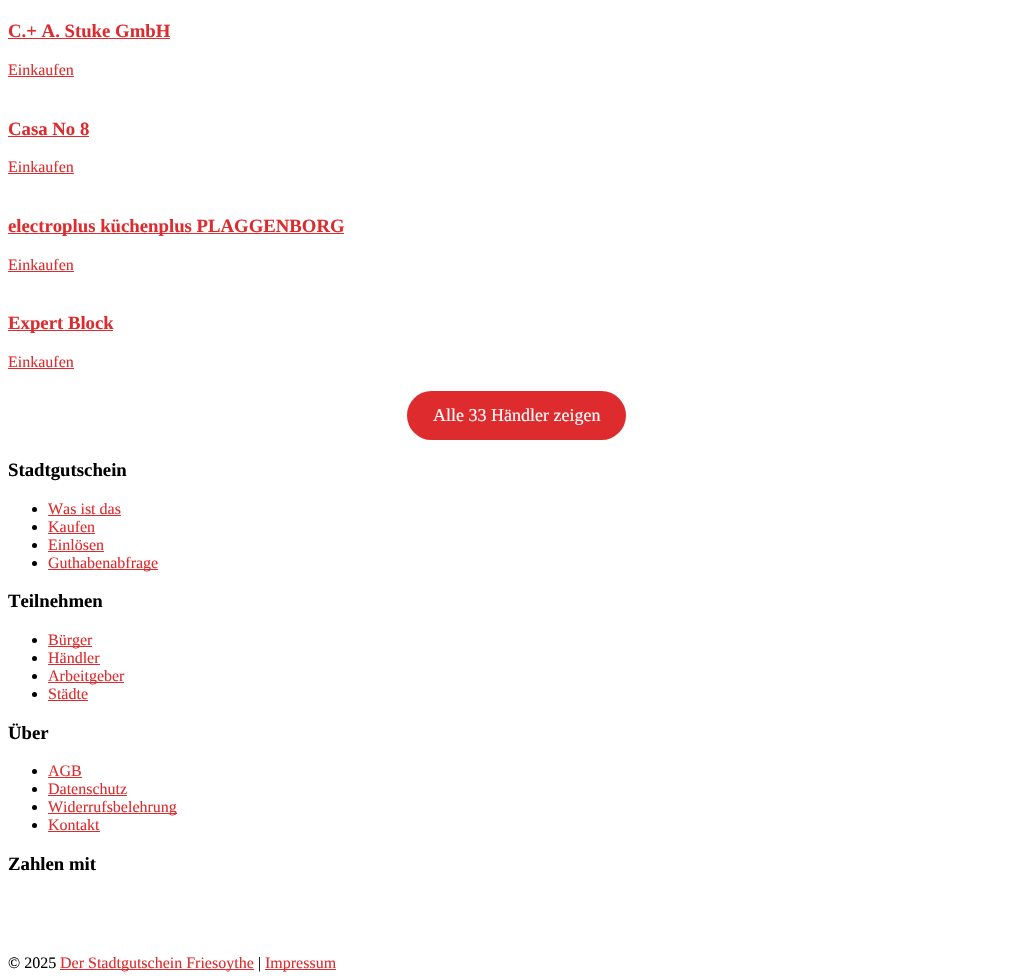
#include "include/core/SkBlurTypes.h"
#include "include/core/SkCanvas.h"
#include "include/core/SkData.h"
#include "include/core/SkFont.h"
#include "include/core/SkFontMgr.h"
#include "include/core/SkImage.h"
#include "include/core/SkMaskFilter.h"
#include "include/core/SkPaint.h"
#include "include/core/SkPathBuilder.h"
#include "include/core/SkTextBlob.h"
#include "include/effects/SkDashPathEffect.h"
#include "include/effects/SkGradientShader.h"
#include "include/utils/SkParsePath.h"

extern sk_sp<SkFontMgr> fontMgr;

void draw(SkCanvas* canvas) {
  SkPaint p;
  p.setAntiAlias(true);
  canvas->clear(SK_ColorWHITE);
  p.setColor(SkColorSetRGB(222, 43, 46));
  canvas->drawRect(SkRect::MakeLTRB(8, 38, 170, 39), p);
  canvas->drawRect(SkRect::MakeLTRB(8, 76, 74, 77), p);
  canvas->drawRect(SkRect::MakeLTRB(8, 136, 89, 137), p);
  canvas->drawRect(SkRect::MakeLTRB(8, 173, 74, 174), p);
  canvas->drawRect(SkRect::MakeLTRB(8, 233, 344, 234), p);
  canvas->drawRect(SkRect::MakeLTRB(8, 271, 74, 272), p);
  canvas->drawRect(SkRect::MakeLTRB(8, 330, 113, 331), p);
  canvas->drawRect(SkRect::MakeLTRB(8, 368, 74, 369), p);
  canvas->drawRoundRect(SkRect::MakeLTRB(407, 391, 626, 440), 24.5f, 24.5f, p);
  p.setColor(SK_ColorBLACK);
  canvas->drawCircle(34.5f, 509.5f, 2.5f, p);
  p.setColor(SkColorSetRGB(222, 43, 46));
  canvas->drawRect(SkRect::MakeLTRB(48, 515, 121, 516), p);
  p.setColor(SK_ColorBLACK);
  canvas->drawCircle(34.5f, 527.5f, 2.5f, p);
  p.setColor(SkColorSetRGB(222, 43, 46));
  canvas->drawRect(SkRect::MakeLTRB(48, 533, 95, 534), p);
  p.setColor(SK_ColorBLACK);
  canvas->drawCircle(34.5f, 545.5f, 2.5f, p);
  p.setColor(SkColorSetRGB(222, 43, 46));
  canvas->drawRect(SkRect::MakeLTRB(48, 551, 104, 552), p);
  p.setColor(SK_ColorBLACK);
  canvas->drawCircle(34.5f, 563.5f, 2.5f, p);
  p.setColor(SkColorSetRGB(222, 43, 46));
  canvas->drawRect(SkRect::MakeLTRB(48, 569, 158, 570), p);
  p.setColor(SK_ColorBLACK);
  canvas->drawCircle(34.5f, 640.5f, 2.5f, p);
  p.setColor(SkColorSetRGB(222, 43, 46));
  canvas->drawRect(SkRect::MakeLTRB(48, 646, 92, 647), p);
  p.setColor(SK_ColorBLACK);
  canvas->drawCircle(34.5f, 658.5f, 2.5f, p);
  p.setColor(SkColorSetRGB(222, 43, 46));
  canvas->drawRect(SkRect::MakeLTRB(48, 664, 100, 665), p);
  p.setColor(SK_ColorBLACK);
  canvas->drawCircle(34.5f, 676.5f, 2.5f, p);
  p.setColor(SkColorSetRGB(222, 43, 46));
  canvas->drawRect(SkRect::MakeLTRB(48, 682, 124, 683), p);
  p.setColor(SK_ColorBLACK);
  canvas->drawCircle(34.5f, 694.5f, 2.5f, p);
  p.setColor(SkColorSetRGB(222, 43, 46));
  canvas->drawRect(SkRect::MakeLTRB(48, 700, 88, 701), p);
  p.setColor(SK_ColorBLACK);
  canvas->drawCircle(34.5f, 771.5f, 2.5f, p);
  p.setColor(SkColorSetRGB(222, 43, 46));
  canvas->drawRect(SkRect::MakeLTRB(48, 777, 82, 778), p);
  p.setColor(SK_ColorBLACK);
  canvas->drawCircle(34.5f, 789.5f, 2.5f, p);
  p.setColor(SkColorSetRGB(222, 43, 46));
  canvas->drawRect(SkRect::MakeLTRB(48, 795, 127, 796), p);
  p.setColor(SK_ColorBLACK);
  canvas->drawCircle(34.5f, 807.5f, 2.5f, p);
  p.setColor(SkColorSetRGB(222, 43, 46));
  canvas->drawRect(SkRect::MakeLTRB(48, 813, 177, 814), p);
  p.setColor(SK_ColorBLACK);
  canvas->drawCircle(34.5f, 825.5f, 2.5f, p);
  p.setColor(SkColorSetRGB(222, 43, 46));
  canvas->drawRect(SkRect::MakeLTRB(48, 831, 100, 832), p);
  canvas->drawRect(SkRect::MakeLTRB(60, 969, 254, 970), p);
  canvas->drawRect(SkRect::MakeLTRB(265, 969, 336, 970), p);
  SkFont font1(fontMgr->matchFamilyStyle("Liberation Serif", SkFontStyle::Bold()), 18.75f);
  font1.setSubpixel(true);
  canvas->drawString("C.+ A. Stuke GmbH", 8, 37, font1, p);
  SkFont font2(fontMgr->matchFamilyStyle("Liberation Serif", SkFontStyle::Normal()), 16);
  font2.setSubpixel(true);
  canvas->drawString("Einkaufen", 8, 75, font2, p);
  canvas->drawString("Casa No 8", 8, 135, font1, p);
  canvas->drawString("Einkaufen", 8, 172, font2, p);
  canvas->drawString("electroplus küchenplus PLAGGENBORG", 8, 232, font1, p);
  canvas->drawString("Einkaufen", 8, 270, font2, p);
  canvas->drawString("Expert Block", 8, 329, font1, p);
  canvas->drawString("Einkaufen", 8, 367, font2, p);
  SkFont font3(fontMgr->matchFamilyStyle("Liberation Serif", SkFontStyle::Normal()), 18);
  font3.setSubpixel(true);
  p.setColor(SK_ColorWHITE);
  canvas->drawString("Alle 33 Händler zeigen", 433, 421, font3, p);
  p.setColor(SK_ColorBLACK);
  canvas->drawString("Stadtgutschein", 8, 476, font1, p);
  p.setColor(SkColorSetRGB(222, 43, 46));
  canvas->drawString("Was ist das", 48, 514, font2, p);
  canvas->drawString("Kaufen", 48, 532, font2, p);
  canvas->drawString("Einlösen", 48, 550, font2, p);
  canvas->drawString("Guthabenabfrage", 48, 568, font2, p);
  p.setColor(SK_ColorBLACK);
  canvas->drawString("Teilnehmen", 8, 607, font1, p);
  p.setColor(SkColorSetRGB(222, 43, 46));
  canvas->drawString("Bürger", 48, 645, font2, p);
  canvas->drawString("Händler", 48, 663, font2, p);
  canvas->drawString("Arbeitgeber", 48, 681, font2, p);
  canvas->drawString("Städte", 48, 699, font2, p);
  p.setColor(SK_ColorBLACK);
  canvas->drawString("Über", 8, 739, font1, p);
  p.setColor(SkColorSetRGB(222, 43, 46));
  canvas->drawString("AGB", 48, 776, font2, p);
  canvas->drawString("Datenschutz", 48, 794, font2, p);
  canvas->drawString("Widerrufsbelehrung", 48, 812, font2, p);
  canvas->drawString("Kontakt", 48, 830, font2, p);
  p.setColor(SK_ColorBLACK);
  canvas->drawString("Zahlen mit", 8, 870, font1, p);
  canvas->drawString("© 2025", 8, 968, font2, p);
  p.setColor(SkColorSetRGB(222, 43, 46));
  canvas->drawString("Der Stadtgutschein Friesoythe", 60, 968, font2, p);
  p.setColor(SK_ColorBLACK);
  canvas->drawString("|", 258, 968, font2, p);
  p.setColor(SkColorSetRGB(222, 43, 46));
  canvas->drawString("Impressum", 265, 968, font2, p);
}
